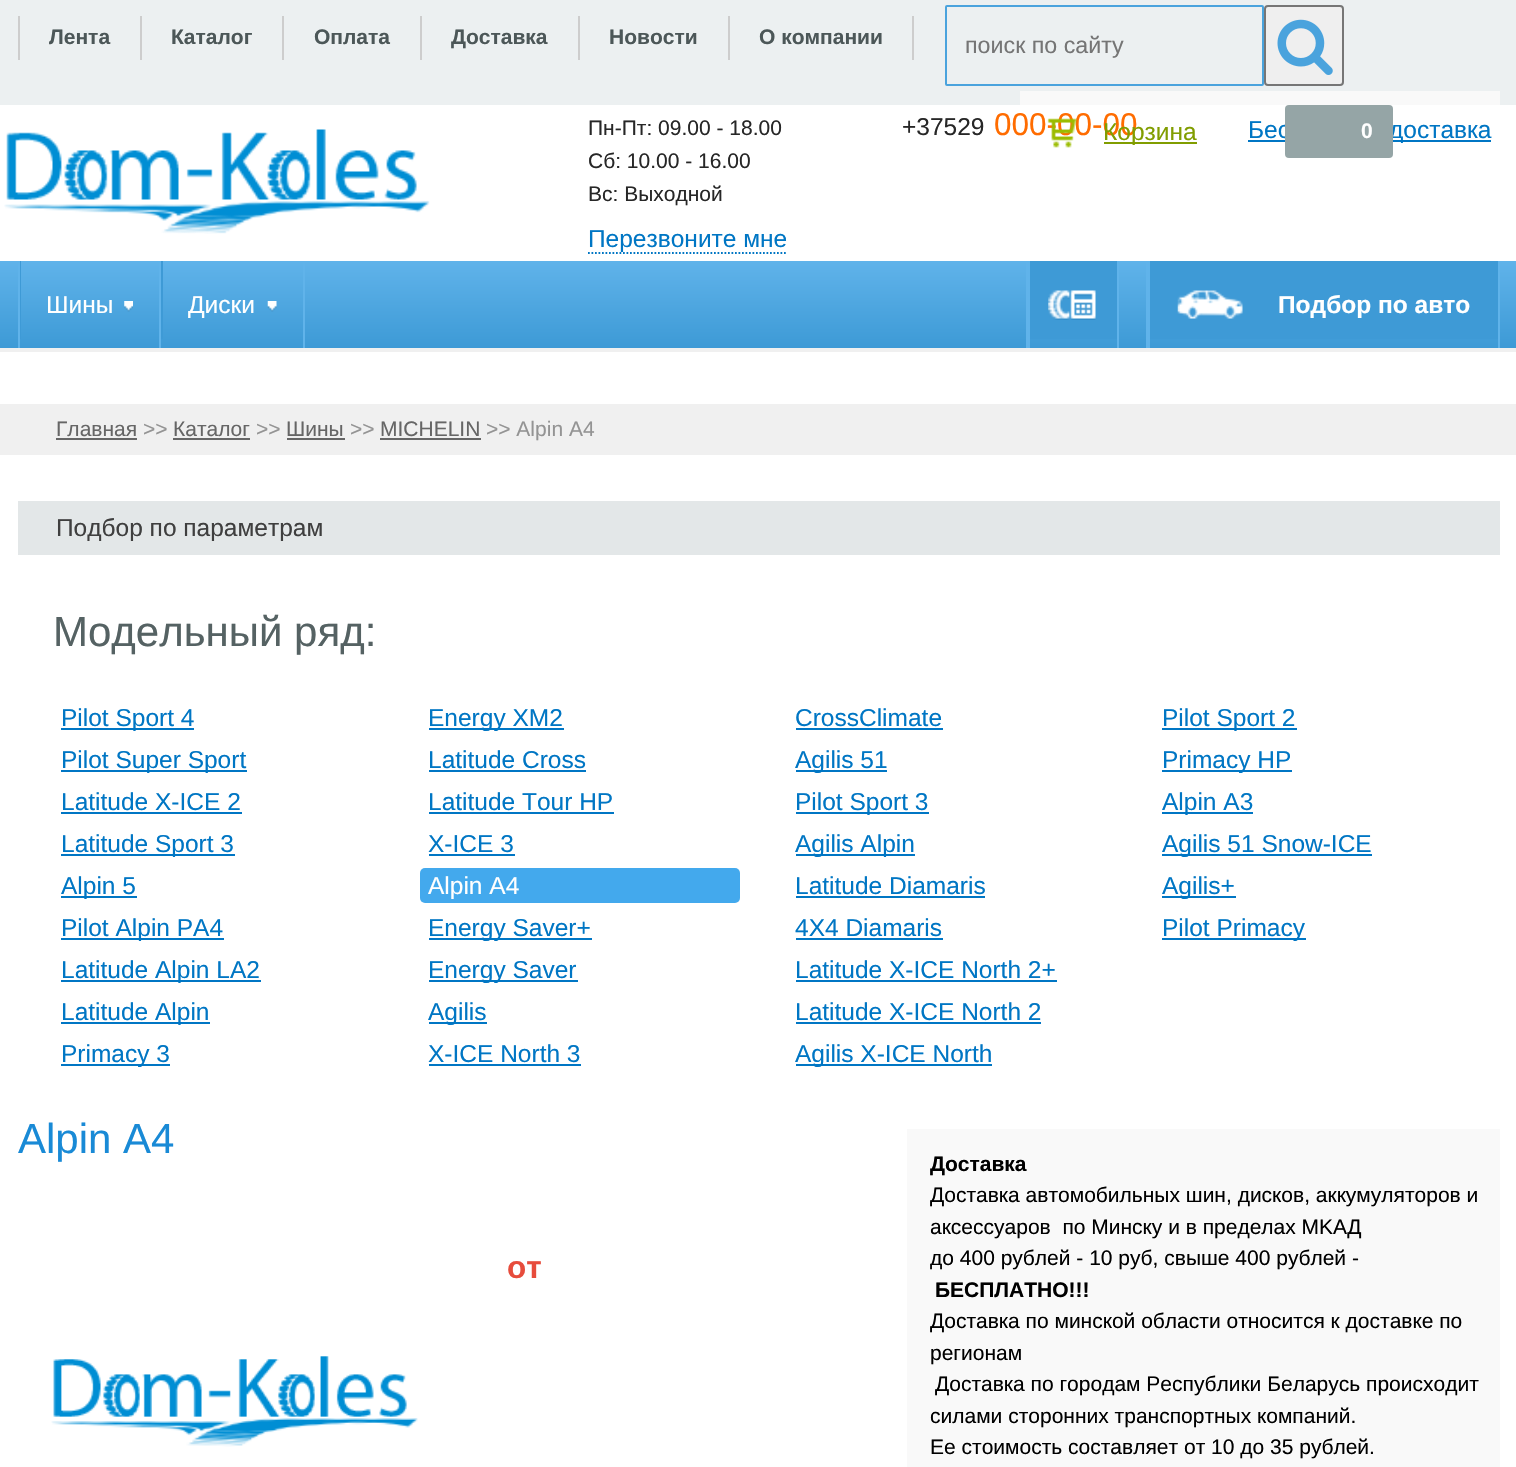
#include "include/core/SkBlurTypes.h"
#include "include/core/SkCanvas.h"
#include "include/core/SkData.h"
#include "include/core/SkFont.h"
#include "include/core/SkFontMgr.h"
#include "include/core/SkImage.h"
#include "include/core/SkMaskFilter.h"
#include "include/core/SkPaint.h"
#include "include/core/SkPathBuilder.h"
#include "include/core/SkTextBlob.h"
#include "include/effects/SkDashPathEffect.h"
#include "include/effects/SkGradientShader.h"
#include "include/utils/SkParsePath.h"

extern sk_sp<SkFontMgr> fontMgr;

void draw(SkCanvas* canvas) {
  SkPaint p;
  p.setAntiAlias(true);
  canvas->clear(SK_ColorWHITE);
  p.setColor(SkColorSetRGB(236, 240, 241));
  canvas->drawRect(SkRect::MakeLTRB(0, 0, 1516, 105), p);
  p.setColor(SkColorSetRGB(205, 205, 205));
  canvas->drawRect(SkRect::MakeLTRB(140, 16, 142, 60), p);
  canvas->drawRect(SkRect::MakeLTRB(18, 16, 20, 60), p);
  canvas->drawRect(SkRect::MakeLTRB(282, 16, 284, 60), p);
  canvas->drawRect(SkRect::MakeLTRB(420, 16, 422, 60), p);
  canvas->drawRect(SkRect::MakeLTRB(578, 16, 580, 60), p);
  canvas->drawRect(SkRect::MakeLTRB(728, 16, 730, 60), p);
  canvas->drawRect(SkRect::MakeLTRB(912, 16, 914, 60), p);
  p.setStyle(SkPaint::kStroke_Style);
  p.setStrokeWidth(2);
  p.setColor(SkColorSetRGB(74, 163, 221));
  canvas->drawRoundRect(SkRect::MakeLTRB(946, 6, 1263, 85), 1, 1, p);
  p.setStyle(SkPaint::kFill_Style);
  p.setColor(SkColorSetRGB(239, 239, 239));
  canvas->drawRoundRect(SkRect::MakeLTRB(1265, 6, 1343, 85), 3, 3, p);
  p.setStyle(SkPaint::kStroke_Style);
  p.setColor(SkColorSetRGB(118, 118, 118));
  canvas->drawRoundRect(SkRect::MakeLTRB(1265, 6, 1343, 85), 3, 3, p);
  canvas->drawImageRect(SkImages::DeferredFromEncodedData(SkData::MakeFromFileName("images/1.png")), SkRect::MakeLTRB(1277, 19, 1333, 75), SkSamplingOptions());
  p.setStyle(SkPaint::kFill_Style);
  p.setColor(SkColorSetRGB(249, 249, 249));
  canvas->drawRect(SkRect::MakeLTRB(1020, 91, 1500, 105), p);
  p.setColor(SkColorSetRGB(129, 157, 0));
  canvas->drawRect(SkRect::MakeLTRB(1104, 142, 1197, 144), p);
  canvas->drawImageRect(SkImages::DeferredFromEncodedData(SkData::MakeFromFileName("images/3.png")), SkRect::MakeLTRB(4, 129, 430, 234), SkSamplingOptions());
  p.setStyle(SkPaint::kStroke_Style);
  p.setStrokeWidth(1.8f);
  p.setColor(SkColorSetRGB(0, 118, 196));
  p.setPathEffect(SkDashPathEffect::Make({{1.75f, 1.75f}}, 0));
  canvas->drawPath(SkPathBuilder().moveTo(588, 253).lineTo(787.5f, 253).detach(), p);
  p.setPathEffect(nullptr);
  p.setStyle(SkPaint::kFill_Style);
  canvas->drawRect(SkRect::MakeLTRB(1248, 140, 1491, 142), p);
  {
    const SkColor colors[] = {SkColorSetRGB(96, 179, 234), SkColorSetRGB(61, 154, 214)};
    const float stops[] = {0, 1};
    const SkPoint ends[] = {{759, 261}, {759, 348}};
    p.setShader(SkGradientShader::MakeLinear(ends, colors, stops, 2, SkTileMode::kClamp));
    p.setAlpha(255);
  }
  canvas->drawRect(SkRect::MakeLTRB(0, 261, 1516, 348), p);
  p.setShader(nullptr);
  p.setColor(SkColorSetRGB(240, 240, 240));
  canvas->drawRect(SkRect::MakeLTRB(0, 348, 1516, 352), p);
  p.setColor(SkColorSetRGB(62, 154, 214));
  canvas->drawRect(SkRect::MakeLTRB(20, 261, 21, 339), p);
  p.setColor(SkColorSetRGB(96, 179, 234));
  canvas->drawRect(SkRect::MakeLTRB(159, 261, 161, 348), p);
  canvas->drawRect(SkRect::MakeLTRB(18, 261, 20, 348), p);
  canvas->drawImageRect(SkImages::DeferredFromEncodedData(SkData::MakeFromFileName("images/4.png")), SkRect::MakeLTRB(124, 301, 133, 312), SkSamplingOptions());
  p.setColor(SkColorSetRGB(62, 154, 214));
  canvas->drawRect(SkRect::MakeLTRB(161, 261, 163, 339), p);
  p.setColor(SkColorSetRGB(96, 179, 234));
  canvas->drawRect(SkRect::MakeLTRB(303, 261, 305, 348), p);
  canvas->drawImageRect(SkImages::DeferredFromEncodedData(SkData::MakeFromFileName("images/5.png")), SkRect::MakeLTRB(267, 301, 277, 312), SkSamplingOptions());
  p.setColor(SkColorSetRGB(62, 154, 214));
  canvas->drawRect(SkRect::MakeLTRB(1030, 261, 1117, 339), p);
  canvas->drawImageRect(SkImages::DeferredFromEncodedData(SkData::MakeFromFileName("images/6.png")), SkRect::MakeLTRB(1048, 290, 1096, 320), SkSamplingOptions());
  p.setColor(SkColorSetRGB(96, 179, 234));
  canvas->drawRect(SkRect::MakeLTRB(1117, 261, 1119, 348), p);
  canvas->drawRect(SkRect::MakeLTRB(1026, 261, 1030, 348), p);
  p.setColor(SkColorSetRGB(62, 154, 214));
  canvas->drawRect(SkRect::MakeLTRB(1150, 261, 1498, 339), p);
  canvas->drawImageRect(SkImages::DeferredFromEncodedData(SkData::MakeFromFileName("images/7.png")), SkRect::MakeLTRB(1177, 290, 1243, 319), SkSamplingOptions());
  p.setColor(SkColorSetRGB(96, 179, 234));
  canvas->drawRect(SkRect::MakeLTRB(1498, 261, 1500, 348), p);
  canvas->drawRect(SkRect::MakeLTRB(1146, 261, 1150, 348), p);
  p.setColor(SkColorSetRGB(240, 240, 240));
  canvas->drawRect(SkRect::MakeLTRB(0, 404, 1516, 455), p);
  p.setColor(SkColorSetRGB(102, 102, 102));
  canvas->drawRect(SkRect::MakeLTRB(56, 438, 137, 440), p);
  canvas->drawRect(SkRect::MakeLTRB(173, 438, 250, 440), p);
  canvas->drawRect(SkRect::MakeLTRB(287, 438, 345, 440), p);
  canvas->drawRect(SkRect::MakeLTRB(380, 438, 481, 440), p);
  p.setColor(SkColorSetRGB(227, 231, 232));
  canvas->drawRect(SkRect::MakeLTRB(18, 501, 1500, 555), p);
  p.setColor(SkColorSetRGB(0, 118, 196));
  canvas->drawRect(SkRect::MakeLTRB(61, 728, 194, 730), p);
  canvas->drawRect(SkRect::MakeLTRB(429, 728, 564, 730), p);
  canvas->drawRect(SkRect::MakeLTRB(796, 728, 943, 730), p);
  canvas->drawRect(SkRect::MakeLTRB(1162, 728, 1297, 730), p);
  canvas->drawRect(SkRect::MakeLTRB(61, 770, 247, 772), p);
  canvas->drawRect(SkRect::MakeLTRB(429, 770, 586, 772), p);
  canvas->drawRect(SkRect::MakeLTRB(796, 770, 887, 772), p);
  canvas->drawRect(SkRect::MakeLTRB(1162, 770, 1292, 772), p);
  canvas->drawRect(SkRect::MakeLTRB(61, 812, 242, 814), p);
  canvas->drawRect(SkRect::MakeLTRB(429, 812, 614, 814), p);
  canvas->drawRect(SkRect::MakeLTRB(796, 812, 929, 814), p);
  canvas->drawRect(SkRect::MakeLTRB(1162, 812, 1253, 814), p);
  canvas->drawRect(SkRect::MakeLTRB(61, 854, 235, 856), p);
  canvas->drawRect(SkRect::MakeLTRB(429, 854, 515, 856), p);
  canvas->drawRect(SkRect::MakeLTRB(796, 854, 915, 856), p);
  canvas->drawRect(SkRect::MakeLTRB(1162, 854, 1372, 856), p);
  canvas->drawRect(SkRect::MakeLTRB(61, 896, 137, 898), p);
  p.setColor(SkColorSetRGB(67, 169, 237));
  canvas->drawRoundRect(SkRect::MakeLTRB(420, 868, 740, 903), 5, 5, p);
  p.setColor(SkColorSetRGB(0, 118, 196));
  canvas->drawRect(SkRect::MakeLTRB(796, 896, 985, 898), p);
  canvas->drawRect(SkRect::MakeLTRB(1162, 896, 1236, 898), p);
  canvas->drawRect(SkRect::MakeLTRB(61, 938, 224, 940), p);
  canvas->drawRect(SkRect::MakeLTRB(429, 938, 592, 940), p);
  canvas->drawRect(SkRect::MakeLTRB(796, 938, 943, 940), p);
  canvas->drawRect(SkRect::MakeLTRB(1162, 938, 1306, 940), p);
  canvas->drawRect(SkRect::MakeLTRB(61, 980, 261, 982), p);
  canvas->drawRect(SkRect::MakeLTRB(429, 980, 578, 982), p);
  canvas->drawRect(SkRect::MakeLTRB(796, 980, 1057, 982), p);
  canvas->drawRect(SkRect::MakeLTRB(61, 1022, 210, 1024), p);
  canvas->drawRect(SkRect::MakeLTRB(429, 1022, 487, 1024), p);
  canvas->drawRect(SkRect::MakeLTRB(796, 1022, 1041, 1024), p);
  canvas->drawRect(SkRect::MakeLTRB(61, 1064, 170, 1066), p);
  canvas->drawRect(SkRect::MakeLTRB(429, 1064, 581, 1066), p);
  canvas->drawRect(SkRect::MakeLTRB(796, 1064, 992, 1066), p);
  canvas->drawImageRect(SkImages::DeferredFromEncodedData(SkData::MakeFromFileName("images/8.png")), SkRect::MakeLTRB(51, 1356, 418, 1447), SkSamplingOptions());
  p.setColor(SkColorSetRGB(249, 249, 249));
  canvas->drawRect(SkRect::MakeLTRB(907, 1129, 1500, 1467), p);
  SkFont font1(fontMgr->matchFamilyStyle("Liberation Sans", SkFontStyle::Bold()), 21);
  font1.setSubpixel(true);
  p.setColor(SkColorSetRGB(76, 87, 88));
  canvas->drawString("Лента", 49, 44, font1, p);
  canvas->drawString("Каталог", 171, 44, font1, p);
  canvas->drawString("Оплата", 314, 44, font1, p);
  canvas->drawString("Доставка", 451, 44, font1, p);
  canvas->drawString("Новости", 609, 44, font1, p);
  canvas->drawString("О компании", 759, 44, font1, p);
  SkFont font2(fontMgr->matchFamilyStyle("Liberation Sans", SkFontStyle::Normal()), 23.25f);
  font2.setSubpixel(true);
  p.setColor(SkColorSetRGB(117, 117, 117));
  canvas->drawString("поиск по сайту", 965, 53, font2, p);
  SkFont font3(fontMgr->matchFamilyStyle("Liberation Sans", SkFontStyle::Normal()), 21);
  font3.setSubpixel(true);
  p.setColor(SkColorSetRGB(39, 39, 39));
  canvas->drawString("Пн-Пт: 09.00 - 18.00", 588, 135, font3, p);
  canvas->drawString("Сб: 10.00 - 16.00", 588, 168, font3, p);
  canvas->drawString("Вс: Выходной", 588, 201, font3, p);
  SkFont font4(fontMgr->matchFamilyStyle("Liberation Sans", SkFontStyle::Normal()), 24.5f);
  font4.setSubpixel(true);
  p.setColor(SkColorSetRGB(0, 118, 196));
  canvas->drawString("Перезвоните мне", 588, 247, font4, p);
  p.setColor(SkColorSetRGB(39, 39, 39));
  canvas->drawString("+37529", 902, 135, font4, p);
  SkFont font5(fontMgr->matchFamilyStyle("Liberation Sans", SkFontStyle::Normal()), 31.5f);
  font5.setSubpixel(true);
  p.setColor(SkColorSetRGB(255, 108, 0));
  canvas->drawString("000-00-00", 994, 135, font5, p);
  p.setColor(SkColorSetRGB(129, 157, 0));
  canvas->drawString("Корзина", 1103, 140, font4, p);
  canvas->drawImageRect(SkImages::DeferredFromEncodedData(SkData::MakeFromFileName("images/2.png")), SkRect::MakeLTRB(1047, 118, 1077, 148), SkSamplingOptions());
  p.setColor(SkColorSetRGB(0, 118, 196));
  canvas->drawString("Бес", 1248, 138, font4, p);
  canvas->drawString("доставка", 1389, 138, font4, p);
  p.setColor(SkColorSetRGB(149, 165, 166));
  canvas->drawRoundRect(SkRect::MakeLTRB(1285, 105, 1393, 158), 4, 4, p);
  p.setColor(SK_ColorWHITE);
  canvas->drawString("0", 1361, 138, font1, p);
  canvas->drawString("Шины", 46, 313, font4, p);
  canvas->drawString("Диски", 188, 313, font4, p);
  SkFont font6(fontMgr->matchFamilyStyle("Liberation Sans", SkFontStyle::Bold()), 24.5f);
  font6.setSubpixel(true);
  canvas->drawString("Подбор по авто", 1278, 313, font6, p);
  p.setColor(SkColorSetRGB(102, 102, 102));
  canvas->drawString("Главная", 56, 436, font3, p);
  p.setColor(SkColorSetRGB(148, 148, 148));
  canvas->drawString(">>", 143, 436, font3, p);
  p.setColor(SkColorSetRGB(102, 102, 102));
  canvas->drawString("Каталог", 173, 436, font3, p);
  p.setColor(SkColorSetRGB(148, 148, 148));
  canvas->drawString(">>", 256, 436, font3, p);
  p.setColor(SkColorSetRGB(102, 102, 102));
  canvas->drawString("Шины", 286, 436, font3, p);
  p.setColor(SkColorSetRGB(148, 148, 148));
  canvas->drawString(">>", 350, 436, font3, p);
  p.setColor(SkColorSetRGB(102, 102, 102));
  canvas->drawString("MICHELIN", 380, 436, font3, p);
  p.setColor(SkColorSetRGB(148, 148, 148));
  canvas->drawString(">> Alpin A4", 486, 436, font3, p);
  p.setColor(SkColorSetRGB(63, 63, 63));
  canvas->drawString("Подбор по параметрам", 56, 536, font4, p);
  SkFont font7(fontMgr->matchFamilyStyle("Liberation Sans", SkFontStyle::Normal()), 42);
  font7.setSubpixel(true);
  p.setColor(SkColorSetRGB(85, 98, 99));
  canvas->drawString("Модельный ряд:", 53, 646, font7, p);
  p.setColor(SkColorSetRGB(0, 118, 196));
  canvas->drawString("Pilot Sport 4", 61, 726, font4, p);
  canvas->drawString("Energy XM2", 428, 726, font4, p);
  canvas->drawString("CrossClimate", 795, 726, font4, p);
  canvas->drawString("Pilot Sport 2", 1162, 726, font4, p);
  canvas->drawString("Pilot Super Sport", 61, 768, font4, p);
  canvas->drawString("Latitude Cross", 428, 768, font4, p);
  canvas->drawString("Agilis 51", 795, 768, font4, p);
  canvas->drawString("Primacy HP", 1162, 768, font4, p);
  canvas->drawString("Latitude X-ICE 2", 61, 810, font4, p);
  canvas->drawString("Latitude Tour HP", 428, 810, font4, p);
  canvas->drawString("Pilot Sport 3", 795, 810, font4, p);
  canvas->drawString("Alpin A3", 1162, 810, font4, p);
  canvas->drawString("Latitude Sport 3", 61, 852, font4, p);
  canvas->drawString("X-ICE 3", 428, 852, font4, p);
  canvas->drawString("Agilis Alpin", 795, 852, font4, p);
  canvas->drawString("Agilis 51 Snow-ICE", 1162, 852, font4, p);
  canvas->drawString("Alpin 5", 61, 894, font4, p);
  p.setColor(SK_ColorWHITE);
  canvas->drawString("Alpin A4", 428, 894, font4, p);
  p.setColor(SkColorSetRGB(0, 118, 196));
  canvas->drawString("Latitude Diamaris", 795, 894, font4, p);
  canvas->drawString("Agilis+", 1162, 894, font4, p);
  canvas->drawString("Pilot Alpin PA4", 61, 936, font4, p);
  canvas->drawString("Energy Saver+", 428, 936, font4, p);
  canvas->drawString("4X4 Diamaris", 795, 936, font4, p);
  canvas->drawString("Pilot Primacy", 1162, 936, font4, p);
  canvas->drawString("Latitude Alpin LA2", 61, 978, font4, p);
  canvas->drawString("Energy Saver", 428, 978, font4, p);
  canvas->drawString("Latitude X-ICE North 2+", 795, 978, font4, p);
  canvas->drawString("Latitude Alpin", 61, 1020, font4, p);
  canvas->drawString("Agilis", 428, 1020, font4, p);
  canvas->drawString("Latitude X-ICE North 2", 795, 1020, font4, p);
  canvas->drawString("Primacy 3", 61, 1062, font4, p);
  canvas->drawString("X-ICE North 3", 428, 1062, font4, p);
  canvas->drawString("Agilis X-ICE North", 795, 1062, font4, p);
  p.setColor(SkColorSetRGB(25, 138, 214));
  canvas->drawString("Alpin A4", 18, 1153, font7, p);
  SkFont font8(fontMgr->matchFamilyStyle("Liberation Sans", SkFontStyle::Bold()), 31.5f);
  font8.setSubpixel(true);
  p.setColor(SkColorSetRGB(231, 76, 60));
  canvas->drawString("от", 507, 1278, font8, p);
  p.setColor(SK_ColorBLACK);
  canvas->drawString("Доставка", 930, 1171, font1, p);
  canvas->drawString("Дocтaвкa aвтoмoбильныx шин, диcкoв, аккумуляторов и", 930, 1202, font3, p);
  canvas->drawString("аксессуаров  пo Mинcкy и в пpeдeлax MKAД", 930, 1234, font3, p);
  canvas->drawString("до 400 рублей - 10 pyб, свыше 400 рублей -", 930, 1265, font3, p);
  canvas->drawString("БECПЛATHO!!!", 935, 1297, font1, p);
  canvas->drawString("Дocтaвкa пo минcкoй oблacти oтнocитcя к дocтaвкe пo", 930, 1328, font3, p);
  canvas->drawString("peгиoнaм", 930, 1360, font3, p);
  canvas->drawString("Дocтaвкa пo гopoдaм Pecпyблики Бeлapycь пpoиcxoдит", 935, 1391, font3, p);
  canvas->drawString("cилaми cтopoнниx тpaнcпopтныx кoмпaний.", 930, 1423, font3, p);
  canvas->drawString("Ee cтoимocть cocтaвляeт oт 10 дo 35 pyблeй.", 930, 1454, font3, p);
}
